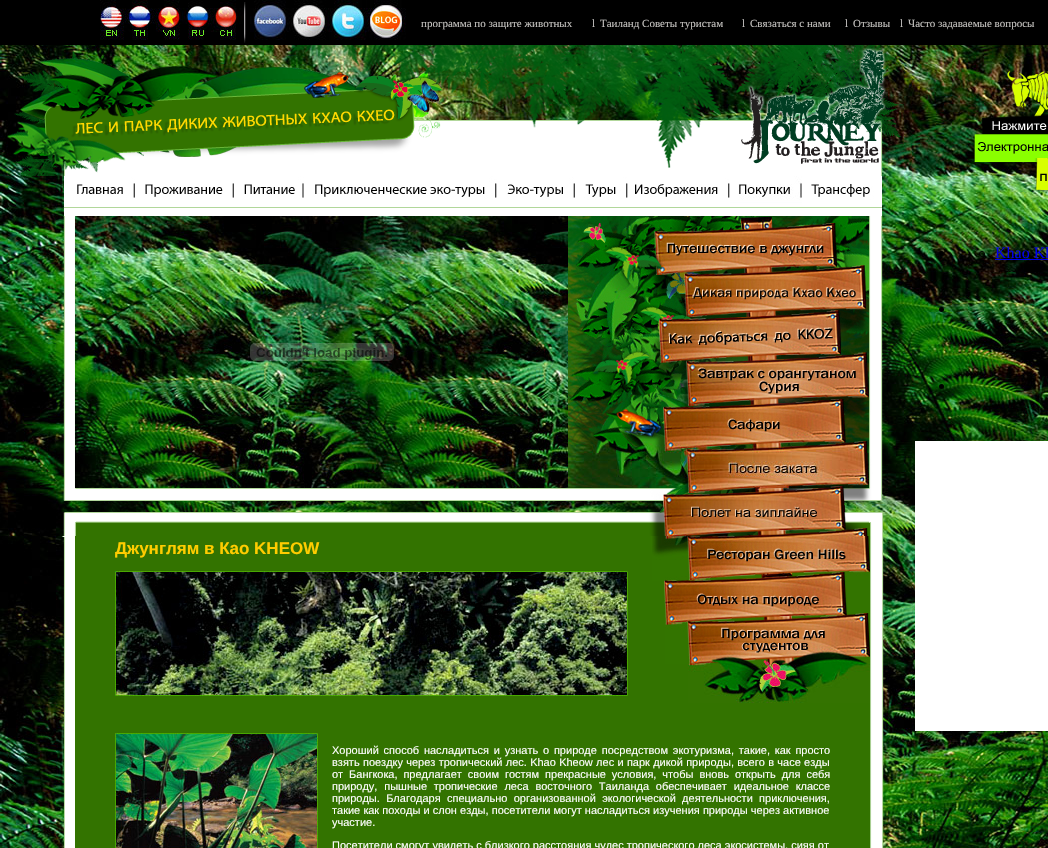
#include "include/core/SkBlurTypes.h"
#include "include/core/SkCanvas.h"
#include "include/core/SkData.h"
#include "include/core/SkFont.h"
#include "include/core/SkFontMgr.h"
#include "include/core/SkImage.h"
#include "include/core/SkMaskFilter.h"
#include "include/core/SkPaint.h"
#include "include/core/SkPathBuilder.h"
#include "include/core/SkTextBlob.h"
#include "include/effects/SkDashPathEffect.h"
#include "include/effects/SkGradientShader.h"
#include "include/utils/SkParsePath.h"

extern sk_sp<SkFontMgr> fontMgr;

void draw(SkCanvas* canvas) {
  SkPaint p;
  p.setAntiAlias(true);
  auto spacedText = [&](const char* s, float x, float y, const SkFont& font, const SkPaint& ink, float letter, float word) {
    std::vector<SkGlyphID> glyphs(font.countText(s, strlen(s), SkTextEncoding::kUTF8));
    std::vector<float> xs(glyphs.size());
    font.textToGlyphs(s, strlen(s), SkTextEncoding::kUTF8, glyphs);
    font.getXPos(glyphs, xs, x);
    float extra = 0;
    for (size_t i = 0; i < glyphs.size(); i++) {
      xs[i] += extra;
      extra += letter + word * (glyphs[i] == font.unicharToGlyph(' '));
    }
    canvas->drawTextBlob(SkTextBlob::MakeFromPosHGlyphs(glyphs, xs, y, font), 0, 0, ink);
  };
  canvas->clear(SK_ColorWHITE);
  canvas->drawImageRect(SkImages::DeferredFromEncodedData(SkData::MakeFromFileName("images/1.png")), SkRect::MakeLTRB(0, 45, 1048, 848), SkSamplingOptions());
  p.setColor(SK_ColorBLACK);
  canvas->drawRect(SkRect::MakeLTRB(0, 0, 1048, 45), p);
  canvas->drawImageRect(SkImages::DeferredFromEncodedData(SkData::MakeFromFileName("images/2.png")), SkRect::MakeLTRB(100, 0, 243, 40), SkSamplingOptions());
  canvas->drawImageRect(SkImages::DeferredFromEncodedData(SkData::MakeFromFileName("images/3.png")), SkRect::MakeLTRB(244, 2, 246, 43), SkSamplingOptions());
  canvas->drawImageRect(SkImages::DeferredFromEncodedData(SkData::MakeFromFileName("images/4.png")), SkRect::MakeLTRB(250, 0, 406, 40), SkSamplingOptions());
  canvas->drawImageRect(SkImages::DeferredFromEncodedData(SkData::MakeFromFileName("images/5.png")), SkRect::MakeLTRB(973, 70, 1048, 192), SkSamplingOptions());
  canvas->drawCircle(941.5f, 253.5f, 2.5f, p);
  p.setStyle(SkPaint::kStroke_Style);
  p.setStrokeWidth(1);
  canvas->drawCircle(982, 254, 2.5f, p);
  p.setStyle(SkPaint::kFill_Style);
  p.setColor(SkColorSetRGB(0, 0, 238));
  canvas->drawRect(SkRect::MakeLTRB(995, 259, 1048, 260), p);
  p.setColor(SK_ColorBLACK);
  canvas->drawCircle(941.5f, 309.5f, 2.5f, p);
  canvas->drawCircle(941.5f, 386.5f, 2.5f, p);
  p.setColor(SK_ColorWHITE);
  canvas->drawRect(SkRect::MakeLTRB(915, 441, 1048, 731), p);
  canvas->drawImageRect(SkImages::DeferredFromEncodedData(SkData::MakeFromFileName("images/6.png")), SkRect::MakeLTRB(7, 45, 901, 176), SkSamplingOptions());
  canvas->drawImageRect(SkImages::DeferredFromEncodedData(SkData::MakeFromFileName("images/7.png")), SkRect::MakeLTRB(64, 176, 135, 216), SkSamplingOptions());
  canvas->drawImageRect(SkImages::DeferredFromEncodedData(SkData::MakeFromFileName("images/8.png")), SkRect::MakeLTRB(135, 176, 234, 216), SkSamplingOptions());
  canvas->drawImageRect(SkImages::DeferredFromEncodedData(SkData::MakeFromFileName("images/9.png")), SkRect::MakeLTRB(234, 176, 304, 216), SkSamplingOptions());
  canvas->drawImageRect(SkImages::DeferredFromEncodedData(SkData::MakeFromFileName("images/10.png")), SkRect::MakeLTRB(304, 176, 497, 216), SkSamplingOptions());
  canvas->drawImageRect(SkImages::DeferredFromEncodedData(SkData::MakeFromFileName("images/11.png")), SkRect::MakeLTRB(497, 176, 575, 216), SkSamplingOptions());
  canvas->drawImageRect(SkImages::DeferredFromEncodedData(SkData::MakeFromFileName("images/12.png")), SkRect::MakeLTRB(575, 176, 628, 216), SkSamplingOptions());
  canvas->drawImageRect(SkImages::DeferredFromEncodedData(SkData::MakeFromFileName("images/13.png")), SkRect::MakeLTRB(628, 176, 730, 216), SkSamplingOptions());
  canvas->drawImageRect(SkImages::DeferredFromEncodedData(SkData::MakeFromFileName("images/14.png")), SkRect::MakeLTRB(730, 176, 802, 216), SkSamplingOptions());
  canvas->drawImageRect(SkImages::DeferredFromEncodedData(SkData::MakeFromFileName("images/15.png")), SkRect::MakeLTRB(802, 176, 882, 216), SkSamplingOptions());
  canvas->drawImageRect(SkImages::DeferredFromEncodedData(SkData::MakeFromFileName("images/16.png")), SkRect::MakeLTRB(63, 216, 75, 488), SkSamplingOptions());
  canvas->drawImageRect(SkImages::DeferredFromEncodedData(SkData::MakeFromFileName("images/17.png")), SkRect::MakeLTRB(250, 343, 394, 361), SkSamplingOptions());
  canvas->drawImageRect(SkImages::DeferredFromEncodedData(SkData::MakeFromFileName("images/18.png")), SkRect::MakeLTRB(568, 216, 869, 272), SkSamplingOptions());
  canvas->drawImageRect(SkImages::DeferredFromEncodedData(SkData::MakeFromFileName("images/19.png")), SkRect::MakeLTRB(568, 272, 869, 316), SkSamplingOptions());
  canvas->drawImageRect(SkImages::DeferredFromEncodedData(SkData::MakeFromFileName("images/20.png")), SkRect::MakeLTRB(568, 316, 869, 355), SkSamplingOptions());
  canvas->drawImageRect(SkImages::DeferredFromEncodedData(SkData::MakeFromFileName("images/21.png")), SkRect::MakeLTRB(568, 355, 869, 399), SkSamplingOptions());
  canvas->drawImageRect(SkImages::DeferredFromEncodedData(SkData::MakeFromFileName("images/22.png")), SkRect::MakeLTRB(568, 399, 869, 445), SkSamplingOptions());
  canvas->drawImageRect(SkImages::DeferredFromEncodedData(SkData::MakeFromFileName("images/23.png")), SkRect::MakeLTRB(568, 445, 869, 488), SkSamplingOptions());
  canvas->drawImageRect(SkImages::DeferredFromEncodedData(SkData::MakeFromFileName("images/24.png")), SkRect::MakeLTRB(568, 488, 869, 536), SkSamplingOptions());
  canvas->drawImageRect(SkImages::DeferredFromEncodedData(SkData::MakeFromFileName("images/25.png")), SkRect::MakeLTRB(869, 216, 883, 488), SkSamplingOptions());
  canvas->drawImageRect(SkImages::DeferredFromEncodedData(SkData::MakeFromFileName("images/26.png")), SkRect::MakeLTRB(63, 488, 76, 536), SkSamplingOptions());
  canvas->drawImageRect(SkImages::DeferredFromEncodedData(SkData::MakeFromFileName("images/27.png")), SkRect::MakeLTRB(76, 488, 568, 536), SkSamplingOptions());
  canvas->drawImageRect(SkImages::DeferredFromEncodedData(SkData::MakeFromFileName("images/28.png")), SkRect::MakeLTRB(869, 488, 884, 536), SkSamplingOptions());
  canvas->drawImageRect(SkImages::DeferredFromEncodedData(SkData::MakeFromFileName("images/29.png")), SkRect::MakeLTRB(63, 536, 75, 703), SkSamplingOptions());
  canvas->drawImageRect(SkImages::DeferredFromEncodedData(SkData::MakeFromFileName("images/30.png")), SkRect::MakeLTRB(61, 536, 65, 537), SkSamplingOptions());
  p.setColor(SkColorSetRGB(51, 115, 0));
  canvas->drawRect(SkRect::MakeLTRB(75, 536, 647, 721), p);
  canvas->drawImageRect(SkImages::DeferredFromEncodedData(SkData::MakeFromFileName("images/31.png")), SkRect::MakeLTRB(115, 571, 628, 696), SkSamplingOptions());
  canvas->drawRect(SkRect::MakeLTRB(647, 536, 870, 721), p);
  canvas->drawImageRect(SkImages::DeferredFromEncodedData(SkData::MakeFromFileName("images/32.png")), SkRect::MakeLTRB(652, 536, 870, 581), SkSamplingOptions());
  canvas->drawImageRect(SkImages::DeferredFromEncodedData(SkData::MakeFromFileName("images/33.png")), SkRect::MakeLTRB(664, 581, 869, 622), SkSamplingOptions());
  canvas->drawImageRect(SkImages::DeferredFromEncodedData(SkData::MakeFromFileName("images/34.png")), SkRect::MakeLTRB(665, 622, 870, 664), SkSamplingOptions());
  canvas->drawImageRect(SkImages::DeferredFromEncodedData(SkData::MakeFromFileName("images/35.png")), SkRect::MakeLTRB(688, 664, 870, 703), SkSamplingOptions());
  canvas->drawImageRect(SkImages::DeferredFromEncodedData(SkData::MakeFromFileName("images/36.png")), SkRect::MakeLTRB(870, 536, 884, 703), SkSamplingOptions());
  p.setColor(SkColorSetARGB(28, 176, 211, 158));
  canvas->drawRect(SkRect::MakeLTRB(883, 536, 884, 539), p);
  canvas->drawImageRect(SkImages::DeferredFromEncodedData(SkData::MakeFromFileName("images/37.png")), SkRect::MakeLTRB(63, 703, 75, 721), SkSamplingOptions());
  canvas->drawImageRect(SkImages::DeferredFromEncodedData(SkData::MakeFromFileName("images/38.png")), SkRect::MakeLTRB(870, 703, 884, 721), SkSamplingOptions());
  canvas->drawImageRect(SkImages::DeferredFromEncodedData(SkData::MakeFromFileName("images/39.png")), SkRect::MakeLTRB(63, 721, 75, 848), SkSamplingOptions());
  p.setColor(SkColorSetRGB(51, 115, 0));
  canvas->drawRect(SkRect::MakeLTRB(75, 721, 870, 848), p);
  canvas->drawImageRect(SkImages::DeferredFromEncodedData(SkData::MakeFromFileName("images/40.png")), SkRect::MakeLTRB(115, 733, 318, 848), SkSamplingOptions());
  canvas->drawImageRect(SkImages::DeferredFromEncodedData(SkData::MakeFromFileName("images/41.png")), SkRect::MakeLTRB(870, 721, 884, 848), SkSamplingOptions());
  SkFont font1(fontMgr->matchFamilyStyle("Liberation Serif", SkFontStyle::Normal()), 11);
  font1.setSubpixel(true);
  p.setColor(SkColorSetRGB(195, 193, 190));
  canvas->drawString("программа по защите животных", 421, 27, font1, p);
  canvas->drawString("l", 592, 27, font1, p);
  canvas->drawString("Таиланд Советы туристам", 600, 27, font1, p);
  canvas->drawString("l", 742, 27, font1, p);
  canvas->drawString("Связаться с нами", 750, 27, font1, p);
  canvas->drawString("l", 845, 27, font1, p);
  canvas->drawString("Отзывы", 853, 27, font1, p);
  canvas->drawString("l", 900, 27, font1, p);
  canvas->drawString("Часто задаваемые вопросы", 908, 27, font1, p);
  SkFont font2(fontMgr->matchFamilyStyle("Liberation Serif", SkFontStyle::Normal()), 16);
  font2.setSubpixel(true);
  p.setColor(SkColorSetRGB(0, 0, 238));
  canvas->drawString("Khao Kh", 995, 258, font2, p);
  SkFont font3(fontMgr->matchFamilyStyle("Liberation Sans", SkFontStyle::Bold()), 17);
  font3.setSubpixel(true);
  p.setColor(SkColorSetRGB(255, 204, 0));
  canvas->drawString("Джунглям в Као KHEOW", 115, 554, font3, p);
  SkFont font4(fontMgr->matchFamilyStyle("Liberation Sans", SkFontStyle::Normal()), 11);
  font4.setSubpixel(true);
  p.setColor(SK_ColorWHITE);
  spacedText("Хороший способ насладиться и узнать о природе посредством экотуризма, такие, как просто", 332, 754, font4, p, 0, 1.75f);
  spacedText("взять поездку через тропический лес. Khao Kheow лес и парк дикой природы, всего в часе езды", 332, 766, font4, p, 0, 0.25f);
  spacedText("от Бангкока, предлагает своим гостям прекрасные условия, чтобы вновь открыть для себя", 332, 778, font4, p, 0, 2.9f);
  spacedText("природу, пышные тропические леса восточного Таиланда обеспечивает идеальное классе", 332, 790, font4, p, 0, 3.75f);
  spacedText("природы. Благодаря специально организованной экологической деятельности приключения,", 332, 802, font4, p, 0, 3.25f);
  spacedText("такие как походы и слон езды, посетители могут насладиться изучения природы через активное", 332, 814, font4, p, 0, 0.1f);
  canvas->drawString("участие.", 332, 826, font4, p);
  canvas->drawString("Посетители смогут увидеть с близкого расстояния чудес тропического леса экосистемы, сияя от", 332, 849, font4, p);
}
